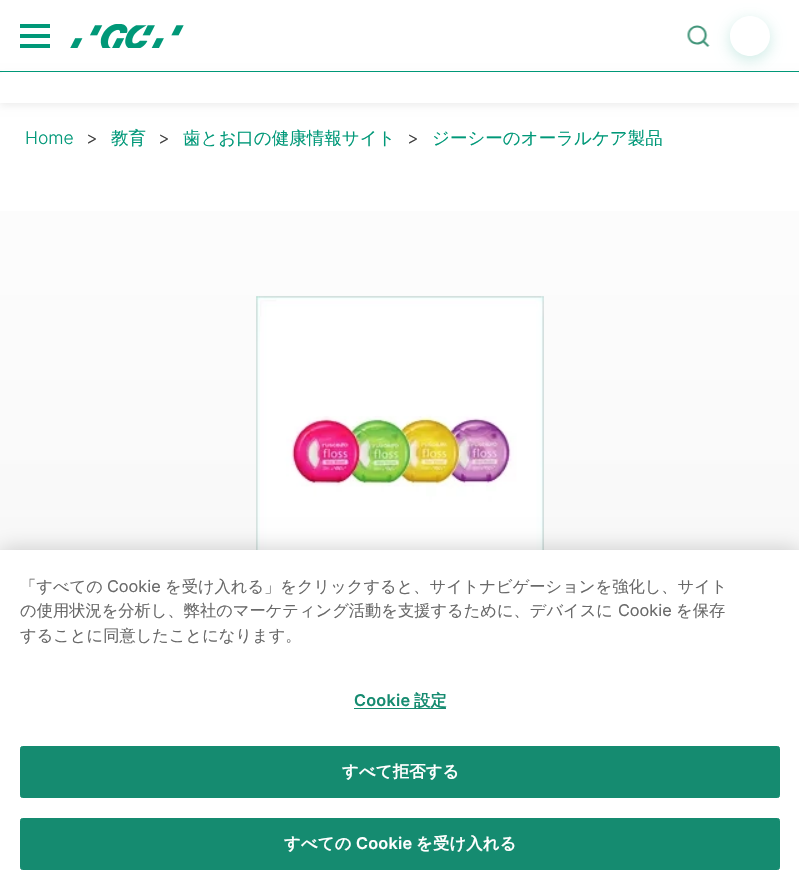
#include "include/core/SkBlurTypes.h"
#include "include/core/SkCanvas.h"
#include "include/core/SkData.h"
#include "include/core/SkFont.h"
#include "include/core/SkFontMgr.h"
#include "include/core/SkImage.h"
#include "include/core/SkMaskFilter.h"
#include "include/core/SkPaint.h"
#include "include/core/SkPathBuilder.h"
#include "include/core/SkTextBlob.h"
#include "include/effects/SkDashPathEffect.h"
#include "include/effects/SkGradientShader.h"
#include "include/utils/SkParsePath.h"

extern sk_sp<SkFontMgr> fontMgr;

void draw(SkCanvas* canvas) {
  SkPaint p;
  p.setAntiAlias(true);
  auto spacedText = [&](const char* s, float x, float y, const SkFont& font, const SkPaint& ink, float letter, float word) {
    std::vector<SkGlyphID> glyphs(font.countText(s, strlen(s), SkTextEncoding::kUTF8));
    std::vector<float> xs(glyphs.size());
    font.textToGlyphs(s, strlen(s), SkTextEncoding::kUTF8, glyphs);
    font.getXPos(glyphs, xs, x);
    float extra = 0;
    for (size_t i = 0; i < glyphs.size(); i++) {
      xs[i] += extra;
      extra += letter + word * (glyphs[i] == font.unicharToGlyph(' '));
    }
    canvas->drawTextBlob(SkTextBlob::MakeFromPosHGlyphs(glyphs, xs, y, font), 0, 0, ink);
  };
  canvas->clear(SK_ColorWHITE);
  {
    const SkColor colors[] = {SK_ColorWHITE, SkColorSetRGB(238, 238, 238)};
    const float stops[] = {0, 0.9f};
    const SkPoint ends[] = {{400, 0}, {400, 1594}};
    p.setShader(SkGradientShader::MakeLinear(ends, colors, stops, 2, SkTileMode::kClamp));
    p.setAlpha(255);
  }
  canvas->drawRect(SkRect::MakeLTRB(0, 211, 799, 550), p);
  canvas->save();
  canvas->clipPath(SkPathBuilder(SkPathFillType::kEvenOdd).moveTo(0, 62).lineTo(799, 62).lineTo(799, 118).lineTo(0, 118).close().moveTo(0, 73).lineTo(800, 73).lineTo(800, 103).lineTo(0, 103).close().detach(), true);
  p.setShader(nullptr);
  p.setColor(SkColorSetARGB(20, 0, 0, 0));
  p.setMaskFilter(SkMaskFilter::MakeBlur(kNormal_SkBlurStyle, 4));
  canvas->drawRect(SkRect::MakeLTRB(0, 75, 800, 105), p);
  p.setMaskFilter(nullptr);
  canvas->restore();
  p.setColor(SK_ColorWHITE);
  canvas->drawRect(SkRect::MakeLTRB(2, 70, 798, 73), p);
  p.setColor(SkColorSetRGB(0, 152, 120));
  canvas->drawRect(SkRect::MakeLTRB(0, 71, 799, 72), p);
  canvas->drawRect(SkRect::MakeLTRB(20, 34, 50, 38), p);
  canvas->drawRect(SkRect::MakeLTRB(20, 24, 50, 28), p);
  canvas->drawRect(SkRect::MakeLTRB(20, 44, 50, 48), p);
  canvas->drawImageRect(SkImages::DeferredFromEncodedData(SkData::MakeFromFileName("images/1.png")), SkRect::MakeLTRB(70, 24, 184, 48), SkSamplingOptions());
  canvas->save();
  canvas->clipPath(SkPathBuilder(SkPathFillType::kEvenOdd).moveTo(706, 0).lineTo(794, 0).lineTo(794, 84).lineTo(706, 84).close().moveTo(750, 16).cubicTo(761, 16, 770, 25, 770, 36).cubicTo(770, 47, 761, 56, 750, 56).cubicTo(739, 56, 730, 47, 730, 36).cubicTo(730, 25, 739, 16, 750, 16).close().detach(), true);
  p.setColor(SkColorSetARGB(51, 0, 152, 120));
  p.setMaskFilter(SkMaskFilter::MakeBlur(kNormal_SkBlurStyle, 7.5f));
  canvas->drawRoundRect(SkRect::MakeLTRB(730, 20, 770, 60), 20, 20, p);
  p.setMaskFilter(nullptr);
  canvas->restore();
  canvas->drawImageRect(SkImages::DeferredFromEncodedData(SkData::MakeFromFileName("images/2.png")), SkRect::MakeLTRB(687, 25, 710, 47), SkSamplingOptions());
  canvas->drawImageRect(SkImages::DeferredFromEncodedData(SkData::MakeFromFileName("images/3.png")), SkRect::MakeLTRB(256, 296, 544, 550), SkSamplingOptions());
  p.setColor(SkColorSetARGB(51, 0, 0, 0));
  p.setMaskFilter(SkMaskFilter::MakeBlur(kNormal_SkBlurStyle, 11));
  canvas->drawRect(SkRect::MakeLTRB(0, 550, 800, 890), p);
  p.setMaskFilter(nullptr);
  p.setColor(SK_ColorWHITE);
  canvas->drawRect(SkRect::MakeLTRB(0, 550, 799, 889), p);
  p.setColor(SkColorSetRGB(21, 139, 112));
  canvas->drawRect(SkRect::MakeLTRB(354, 708, 446, 709), p);
  canvas->drawRoundRect(SkRect::MakeLTRB(20.5f, 746.5f, 779.5f, 797.5f), 2, 2, p);
  p.setStyle(SkPaint::kStroke_Style);
  p.setStrokeWidth(1);
  canvas->drawRoundRect(SkRect::MakeLTRB(20.5f, 746.5f, 779.5f, 797.5f), 2, 2, p);
  p.setStyle(SkPaint::kFill_Style);
  canvas->drawRoundRect(SkRect::MakeLTRB(20.5f, 818.5f, 779.5f, 869.5f), 2, 2, p);
  p.setStyle(SkPaint::kStroke_Style);
  canvas->drawRoundRect(SkRect::MakeLTRB(20.5f, 818.5f, 779.5f, 869.5f), 2, 2, p);
  SkFont font1(fontMgr->matchFamilyStyle("Inter", SkFontStyle(300, SkFontStyle::kNormal_Width, SkFontStyle::kUpright_Slant)), 17.5f);
  font1.setSubpixel(true);
  p.setStyle(SkPaint::kFill_Style);
  p.setColor(SkColorSetRGB(0, 152, 120));
  canvas->drawString("Home", 25, 144, font1, p);
  p.setColor(SkColorSetRGB(63, 63, 63));
  canvas->drawString(">", 86, 144, font1, p);
  SkFont font2(fontMgr->matchFamilyStyle("WenQuanYi Zen Hei", SkFontStyle(500, SkFontStyle::kNormal_Width, SkFontStyle::kUpright_Slant)), 17.5f);
  font2.setSubpixel(true);
  p.setColor(SkColorSetRGB(0, 152, 120));
  canvas->drawString("教育", 111, 144, font2, p);
  p.setColor(SkColorSetRGB(63, 63, 63));
  canvas->drawString(">", 158, 144, font1, p);
  p.setColor(SkColorSetRGB(0, 152, 120));
  canvas->drawString("歯とお口の健康情報サイト", 183, 144, font2, p);
  p.setColor(SkColorSetRGB(63, 63, 63));
  canvas->drawString(">", 407, 144, font1, p);
  p.setColor(SkColorSetRGB(0, 152, 120));
  canvas->drawString("ジーシーのオーラルケア製品", 432, 144, font2, p);
  SkFont font3(fontMgr->matchFamilyStyle("WenQuanYi Zen Hei", SkFontStyle(500, SkFontStyle::kNormal_Width, SkFontStyle::kUpright_Slant)), 16.25f);
  font3.setSubpixel(true);
  p.setColor(SkColorSetRGB(105, 105, 105));
  canvas->drawString("「すべての", 20, 592, font3, p);
  SkFont font4(fontMgr->matchFamilyStyle("Inter", SkFontStyle::Normal()), 16.25f);
  font4.setSubpixel(true);
  canvas->drawString("Cookie", 107, 592, font4, p);
  canvas->drawString("を受け入れる」をクリックすると、サイトナビゲーションを強化し、サイト", 165, 592, font3, p);
  canvas->drawString("の使用状況を分析し、弊社のマーケティング活動を支援するために、デバイスに", 20, 616, font3, p);
  canvas->drawString("Cookie", 618, 616, font4, p);
  canvas->drawString("を保存", 676, 616, font3, p);
  canvas->drawString("することに同意したことになります。", 20, 641, font3, p);
  SkFont font5(fontMgr->matchFamilyStyle("Inter", SkFontStyle(600, SkFontStyle::kNormal_Width, SkFontStyle::kUpright_Slant)), 16.25f);
  font5.setSubpixel(true);
  p.setColor(SkColorSetRGB(21, 139, 112));
  spacedText("Cookie", 354, 706, font5, p, 0.25f, 0);
  SkFont font6(fontMgr->matchFamilyStyle("WenQuanYi Zen Hei", SkFontStyle::Bold()), 16.25f);
  font6.setSubpixel(true);
  spacedText("設定", 414, 706, font6, p, 0.25f, 0);
  p.setColor(SK_ColorWHITE);
  spacedText("すべて拒否する", 342, 777, font6, p, 0.25f, 0);
  spacedText("すべての", 284, 849, font6, p, 0.25f, 0);
  spacedText("Cookie", 356, 849, font5, p, 0.25f, 0);
  spacedText("を受け入れる", 416, 849, font6, p, 0.25f, 0);
}
